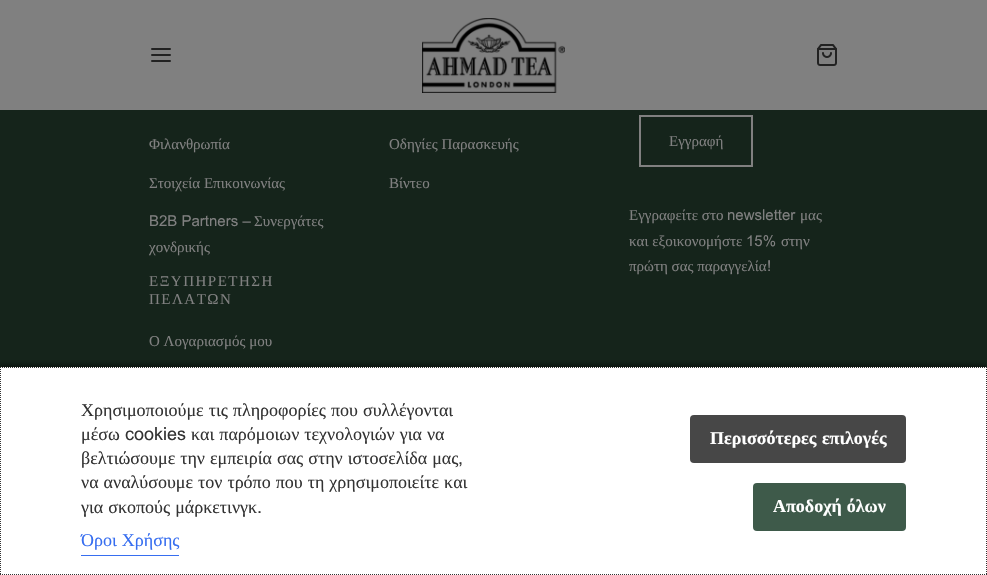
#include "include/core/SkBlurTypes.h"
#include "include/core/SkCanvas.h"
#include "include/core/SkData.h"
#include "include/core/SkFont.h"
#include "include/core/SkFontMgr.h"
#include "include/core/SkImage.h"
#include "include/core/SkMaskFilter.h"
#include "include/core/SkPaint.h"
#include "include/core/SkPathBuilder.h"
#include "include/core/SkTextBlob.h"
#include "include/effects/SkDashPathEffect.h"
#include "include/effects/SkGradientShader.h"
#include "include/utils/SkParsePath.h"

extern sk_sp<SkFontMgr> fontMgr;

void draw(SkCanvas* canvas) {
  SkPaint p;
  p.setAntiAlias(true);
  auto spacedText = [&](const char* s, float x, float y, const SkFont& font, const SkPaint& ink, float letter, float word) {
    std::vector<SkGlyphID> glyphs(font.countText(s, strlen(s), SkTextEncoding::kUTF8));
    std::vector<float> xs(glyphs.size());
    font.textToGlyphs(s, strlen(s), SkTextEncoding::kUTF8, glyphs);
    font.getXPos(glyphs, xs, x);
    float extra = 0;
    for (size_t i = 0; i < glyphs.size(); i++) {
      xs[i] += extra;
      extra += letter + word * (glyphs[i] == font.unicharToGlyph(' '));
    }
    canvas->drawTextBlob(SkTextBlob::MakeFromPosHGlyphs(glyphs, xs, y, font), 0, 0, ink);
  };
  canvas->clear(SkColorSetRGB(21, 36, 27));
  p.setColor(SkColorSetRGB(128, 128, 128));
  canvas->drawRect(SkRect::MakeLTRB(0, 0, 987, 110), p);
  p.setStyle(SkPaint::kStroke_Style);
  p.setStrokeWidth(2);
  p.setStrokeCap(SkPaint::kRound_Cap);
  p.setStrokeJoin(SkPaint::kRound_Join);
  p.setColor(SkColorSetRGB(34, 34, 34));
  canvas->drawPath(SkPathBuilder().moveTo(152, 55).lineTo(170, 55).moveTo(152, 49).lineTo(170, 49).moveTo(152, 61).lineTo(170, 61).detach(), p);
  canvas->drawImageRect(SkImages::DeferredFromEncodedData(SkData::MakeFromFileName("images/1.png")), SkRect::MakeLTRB(422, 18, 565, 93), SkSamplingOptions());
  canvas->drawImageRect(SkImages::DeferredFromEncodedData(SkData::MakeFromFileName("images/2.png")), SkRect::MakeLTRB(817, 44, 837, 66), SkSamplingOptions());
  p.setStrokeCap(SkPaint::kButt_Cap);
  p.setStrokeJoin(SkPaint::kMiter_Join);
  p.setColor(SkColorSetRGB(128, 128, 128));
  canvas->drawRect(SkRect::MakeLTRB(640, 116, 752, 166), p);
  p.setStyle(SkPaint::kFill_Style);
  p.setColor(SkColorSetARGB(128, 0, 0, 0));
  p.setMaskFilter(SkMaskFilter::MakeBlur(kNormal_SkBlurStyle, 2.5f));
  canvas->drawRect(SkRect::MakeLTRB(0, 365, 987, 573), p);
  p.setMaskFilter(nullptr);
  p.setColor(SK_ColorWHITE);
  canvas->drawRect(SkRect::MakeLTRB(0, 367, 987, 575), p);
  p.setStyle(SkPaint::kStroke_Style);
  p.setStrokeWidth(1);
  p.setColor(SkColorSetRGB(51, 51, 51));
  p.setPathEffect(SkDashPathEffect::Make({{1, 1}}, 0));
  canvas->drawPath(SkPathBuilder().moveTo(0, 367.5f).lineTo(987, 367.5f).detach(), p);
  p.setPathEffect(nullptr);
  p.setPathEffect(SkDashPathEffect::Make({{1, 1}}, 0));
  canvas->drawPath(SkPathBuilder().moveTo(986.5f, 367).lineTo(986.5f, 575).detach(), p);
  p.setPathEffect(nullptr);
  p.setPathEffect(SkDashPathEffect::Make({{1, 1}}, 0));
  canvas->drawPath(SkPathBuilder().moveTo(0, 574.5f).lineTo(987, 574.5f).detach(), p);
  p.setPathEffect(nullptr);
  p.setPathEffect(SkDashPathEffect::Make({{1, 1}}, 0));
  canvas->drawPath(SkPathBuilder().moveTo(0.5f, 367).lineTo(0.5f, 575).detach(), p);
  p.setPathEffect(nullptr);
  p.setStyle(SkPaint::kFill_Style);
  p.setColor(SkColorSetRGB(55, 110, 240));
  canvas->drawRect(SkRect::MakeLTRB(81, 555, 179, 556), p);
  p.setColor(SkColorSetRGB(71, 71, 71));
  canvas->drawRoundRect(SkRect::MakeLTRB(690, 415, 906, 463), 4, 4, p);
  p.setColor(SkColorSetRGB(62, 90, 74));
  canvas->drawRoundRect(SkRect::MakeLTRB(753, 483, 906, 531), 4, 4, p);
  SkFont font1(fontMgr->matchFamilyStyle("Liberation Serif", SkFontStyle::Normal()), 15);
  font1.setSubpixel(true);
  p.setColor(SkColorSetRGB(128, 128, 128));
  canvas->drawString("Φιλανθρωπία", 149, 149, font1, p);
  canvas->drawString("Στοιχεία Επικοινωνίας", 149, 188, font1, p);
  SkFont font2(fontMgr->matchFamilyStyle("Arial", SkFontStyle::Normal()), 15);
  font2.setSubpixel(true);
  canvas->drawString("B2B Partners –", 149, 226, font2, p);
  canvas->drawString("Συνεργάτες", 254, 226, font1, p);
  canvas->drawString("χονδρικής", 149, 252, font1, p);
  canvas->drawString("Οδηγίες Παρασκευής", 389, 149, font1, p);
  canvas->drawString("Βίντεο", 389, 188, font1, p);
  spacedText("ΕΞΥΠΗΡΕΤΗΣΗ", 149, 286, font1, p, 1.5f, 0);
  spacedText("ΠΕΛΑΤΩΝ", 149, 304, font1, p, 1.5f, 0);
  canvas->drawString("Ο Λογαριασμός μου", 149, 346, font1, p);
  canvas->drawString("Εγγραφή", 669, 146, font1, p);
  canvas->drawString("Εγγραφείτε στο", 629, 220, font1, p);
  canvas->drawString("newsletter", 727, 220, font2, p);
  canvas->drawString("μας", 800, 220, font1, p);
  canvas->drawString("και εξοικονομήστε", 629, 246, font1, p);
  canvas->drawString("15%", 746, 246, font2, p);
  canvas->drawString("στην", 781, 246, font1, p);
  canvas->drawString("πρώτη σας παραγγελία", 629, 271, font1, p);
  canvas->drawString("!", 767, 271, font2, p);
  SkFont font3(fontMgr->matchFamilyStyle("Liberation Serif", SkFontStyle::Normal()), 18);
  font3.setSubpixel(true);
  p.setColor(SkColorSetRGB(51, 51, 51));
  spacedText("Χρησιμοποιούμε τις πληροφορίες που συλλέγονται", 81, 416, font3, p, 0, 0.5f);
  canvas->drawString("μέσω", 81, 440, font3, p);
  SkFont font4(fontMgr->matchFamilyStyle("Arial", SkFontStyle::Normal()), 18);
  font4.setSubpixel(true);
  canvas->drawString("cookies", 125, 440, font4, p);
  spacedText("και παρόμοιων τεχνολογιών για να", 191, 440, font3, p, 0, 0.5f);
  spacedText("βελτιώσουμε την εμπειρία σας στην ιστοσελίδα μας", 81, 464, font3, p, 0, 0.5f);
  canvas->drawString(",", 458, 464, font4, p);
  spacedText("να αναλύσουμε τον τρόπο που τη χρησιμοποιείτε και", 81, 488, font3, p, 0, 0.5f);
  spacedText("για σκοπούς μάρκετινγκ", 81, 513, font3, p, 0, 0.5f);
  canvas->drawString(".", 257, 513, font4, p);
  p.setColor(SkColorSetRGB(55, 110, 240));
  spacedText("Όροι Χρήσης", 81, 546, font3, p, 0, 0.5f);
  SkFont font5(fontMgr->matchFamilyStyle("Liberation Serif", SkFontStyle::Bold()), 18);
  font5.setSubpixel(true);
  p.setColor(SK_ColorWHITE);
  spacedText("Περισσότερες επιλογές", 710, 444, font5, p, 0, 1);
  spacedText("Αποδοχή όλων", 773, 512, font5, p, 0, 0.5f);
}
